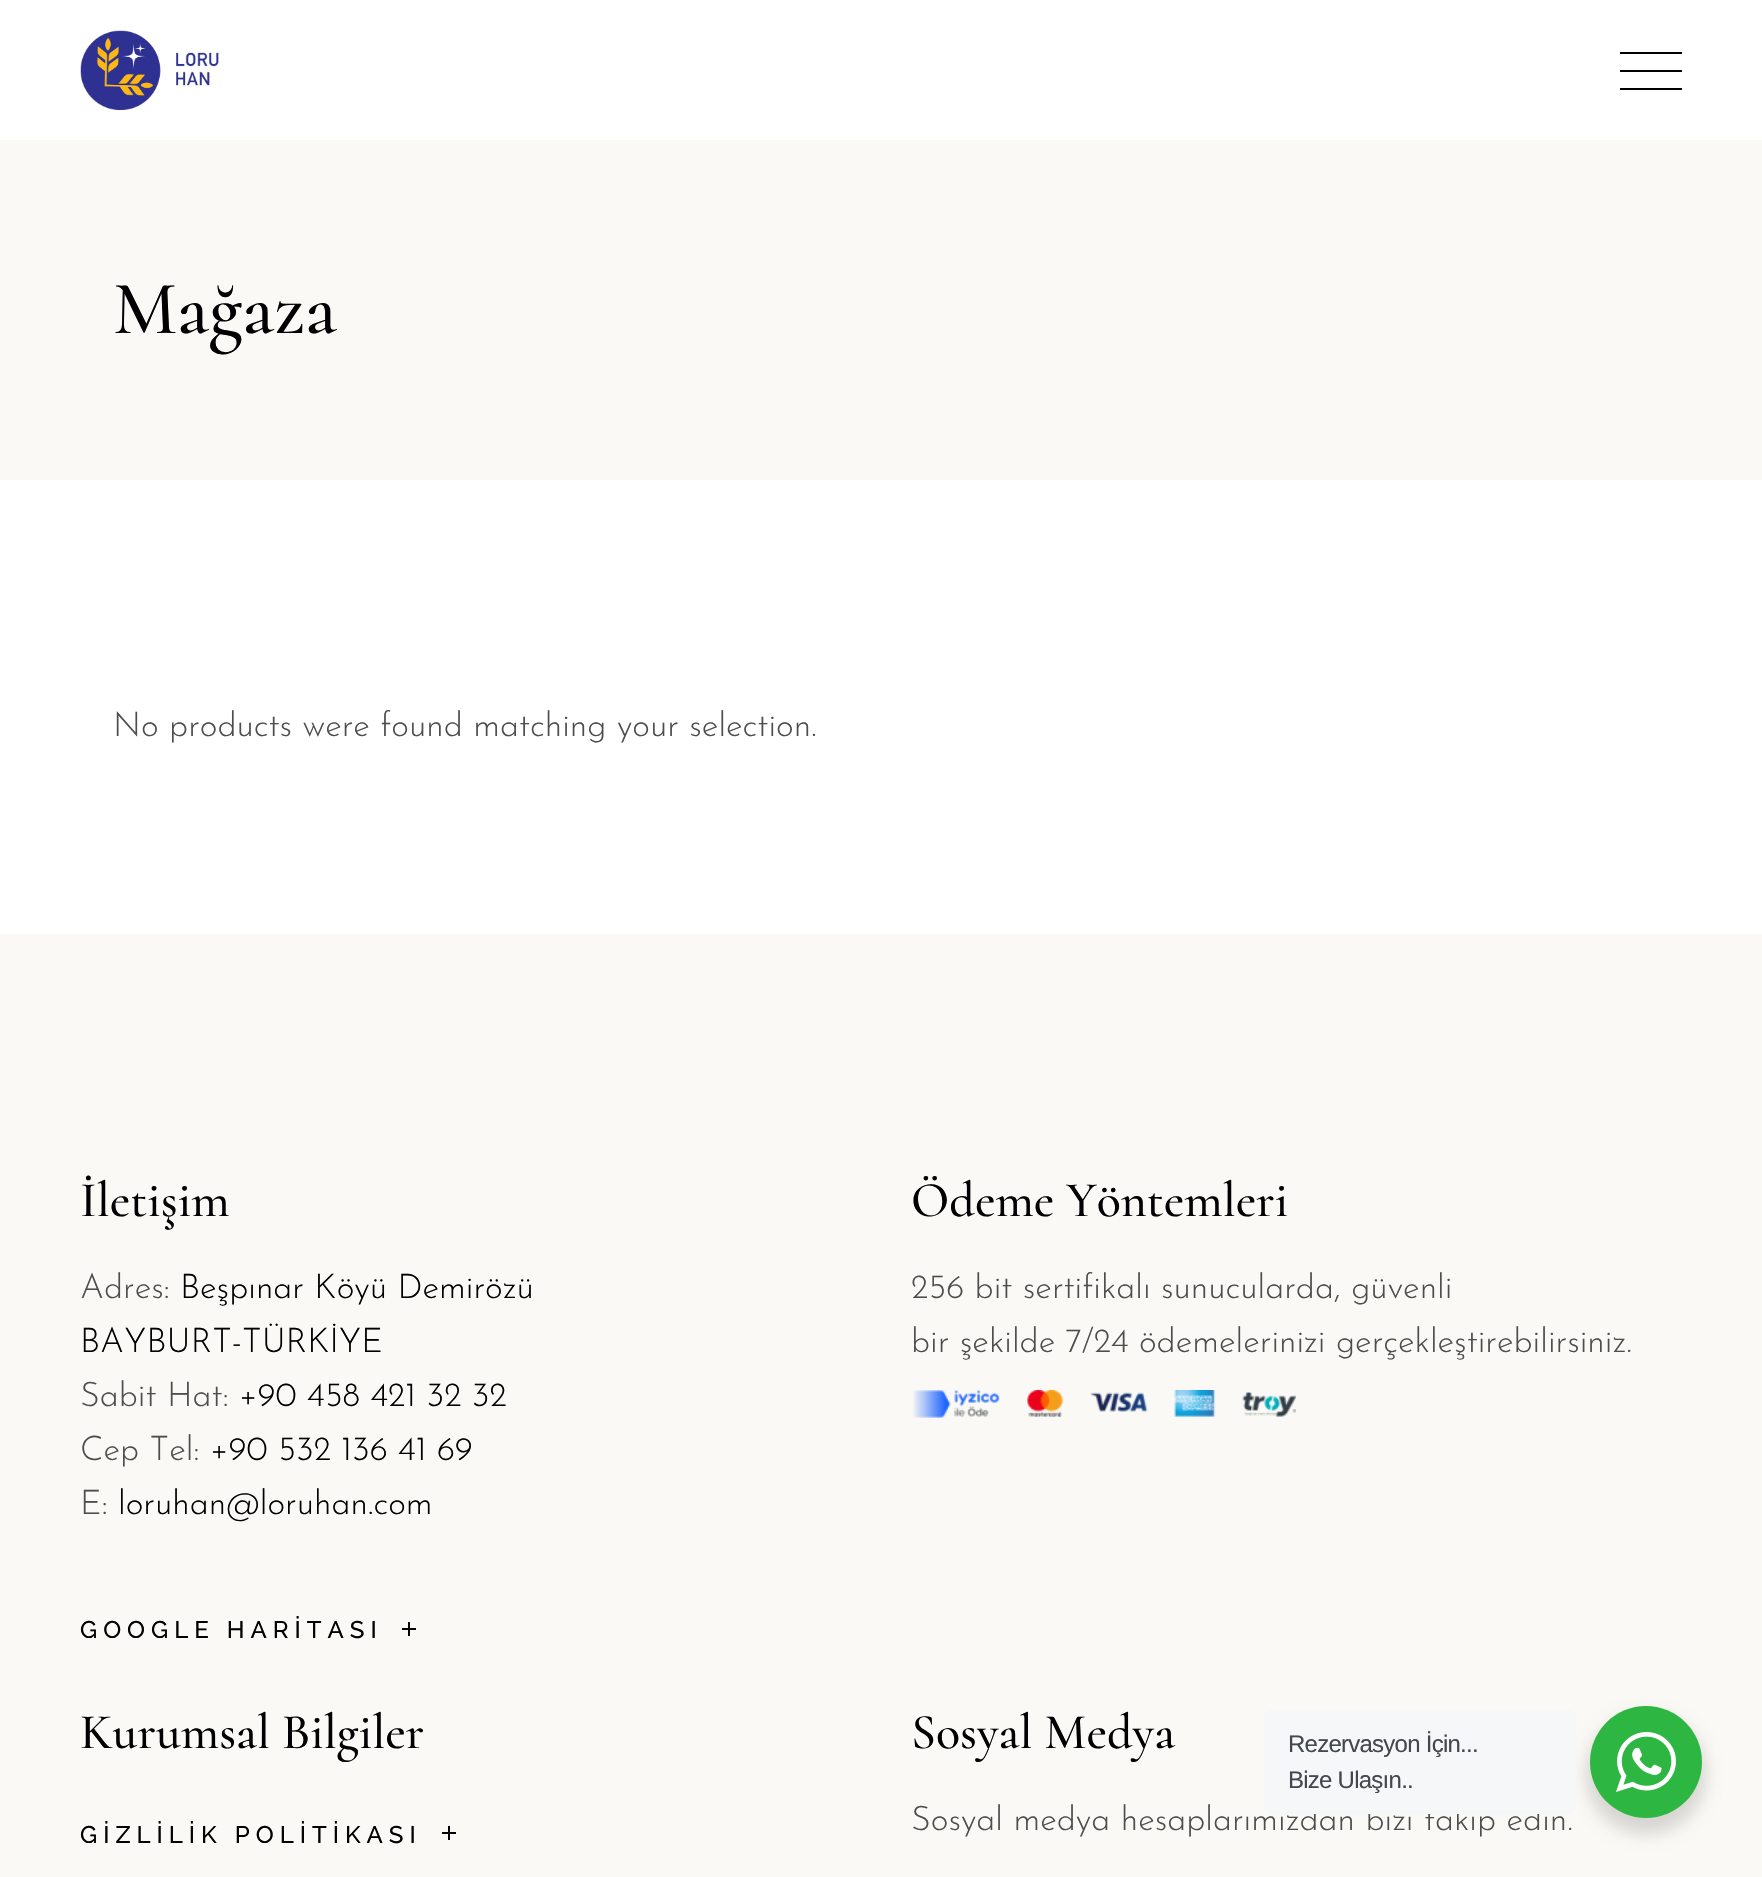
#include "include/core/SkBlurTypes.h"
#include "include/core/SkCanvas.h"
#include "include/core/SkData.h"
#include "include/core/SkFont.h"
#include "include/core/SkFontMgr.h"
#include "include/core/SkImage.h"
#include "include/core/SkMaskFilter.h"
#include "include/core/SkPaint.h"
#include "include/core/SkPathBuilder.h"
#include "include/core/SkTextBlob.h"
#include "include/effects/SkDashPathEffect.h"
#include "include/effects/SkGradientShader.h"
#include "include/utils/SkParsePath.h"

extern sk_sp<SkFontMgr> fontMgr;

void draw(SkCanvas* canvas) {
  SkPaint p;
  p.setAntiAlias(true);
  auto spacedText = [&](const char* s, float x, float y, const SkFont& font, const SkPaint& ink, float letter, float word) {
    std::vector<SkGlyphID> glyphs(font.countText(s, strlen(s), SkTextEncoding::kUTF8));
    std::vector<float> xs(glyphs.size());
    font.textToGlyphs(s, strlen(s), SkTextEncoding::kUTF8, glyphs);
    font.getXPos(glyphs, xs, x);
    float extra = 0;
    for (size_t i = 0; i < glyphs.size(); i++) {
      xs[i] += extra;
      extra += letter + word * (glyphs[i] == font.unicharToGlyph(' '));
    }
    canvas->drawTextBlob(SkTextBlob::MakeFromPosHGlyphs(glyphs, xs, y, font), 0, 0, ink);
  };
  canvas->clear(SK_ColorWHITE);
  canvas->drawImageRect(SkImages::DeferredFromEncodedData(SkData::MakeFromFileName("images/1.png")), SkRect::MakeLTRB(80, 30, 219, 110), SkSamplingOptions());
  p.setColor(SK_ColorBLACK);
  canvas->drawRect(SkRect::MakeLTRB(1620, 52, 1682, 54), p);
  canvas->drawRect(SkRect::MakeLTRB(1620, 70, 1682, 72), p);
  canvas->drawRect(SkRect::MakeLTRB(1620, 88, 1682, 90), p);
  p.setColor(SkColorSetRGB(250, 249, 245));
  canvas->drawRect(SkRect::MakeLTRB(0, 140, 1762, 480), p);
  canvas->drawRect(SkRect::MakeLTRB(0, 934, 1762, 1877), p);
  p.setColor(SK_ColorBLACK);
  canvas->drawRect(SkRect::MakeLTRB(402, 1628, 416, 1630), p);
  canvas->drawRect(SkRect::MakeLTRB(408, 1622, 410, 1636), p);
  canvas->drawImageRect(SkImages::DeferredFromEncodedData(SkData::MakeFromFileName("images/2.png")), SkRect::MakeLTRB(913, 1390, 1296, 1418), SkSamplingOptions());
  canvas->drawRect(SkRect::MakeLTRB(442, 1832, 456, 1834), p);
  canvas->drawRect(SkRect::MakeLTRB(448, 1826, 450, 1840), p);
  p.setColor(SkColorSetARGB(36, 0, 0, 0));
  p.setMaskFilter(SkMaskFilter::MakeBlur(kNormal_SkBlurStyle, 8));
  canvas->drawRoundRect(SkRect::MakeLTRB(1586, 1714, 1706, 1834), 60, 60, p);
  p.setMaskFilter(nullptr);
  p.setColor(SkColorSetRGB(45, 183, 66));
  canvas->drawCircle(1646, 1762, 56, p);
  canvas->drawImageRect(SkImages::DeferredFromEncodedData(SkData::MakeFromFileName("images/3.png")), SkRect::MakeLTRB(1616, 1732, 1676, 1792), SkSamplingOptions());
  SkFont font1(fontMgr->matchFamilyStyle("Cormorant", SkFontStyle(500, SkFontStyle::kNormal_Width, SkFontStyle::kUpright_Slant)), 76);
  font1.setSubpixel(true);
  p.setColor(SK_ColorBLACK);
  canvas->drawString("Mağaza", 113, 333, font1, p);
  SkFont font2(fontMgr->matchFamilyStyle("Josefin Sans", SkFontStyle(300, SkFontStyle::kNormal_Width, SkFontStyle::kUpright_Slant)), 34);
  font2.setSubpixel(true);
  p.setColor(SkColorSetRGB(77, 77, 77));
  canvas->drawString("No products were found matching your selection.", 113, 736, font2, p);
  SkFont font3(fontMgr->matchFamilyStyle("Cormorant", SkFontStyle(500, SkFontStyle::kNormal_Width, SkFontStyle::kUpright_Slant)), 50);
  font3.setSubpixel(true);
  p.setColor(SK_ColorBLACK);
  canvas->drawString("İletişim", 80, 1216, font3, p);
  p.setColor(SkColorSetRGB(77, 77, 77));
  canvas->drawString("Adres:", 80, 1298, font2, p);
  p.setColor(SK_ColorBLACK);
  canvas->drawString("Beşpınar Köyü Demirözü", 180, 1298, font2, p);
  canvas->drawString("BAYBURT-TÜRKİYE", 80, 1352, font2, p);
  p.setColor(SkColorSetRGB(77, 77, 77));
  canvas->drawString("Sabit Hat:", 80, 1406, font2, p);
  p.setColor(SK_ColorBLACK);
  canvas->drawString("+90 458 421 32 32", 239, 1406, font2, p);
  p.setColor(SkColorSetRGB(77, 77, 77));
  canvas->drawString("Cep Tel:", 80, 1460, font2, p);
  p.setColor(SK_ColorBLACK);
  canvas->drawString("+90 532 136 41 69", 210, 1460, font2, p);
  p.setColor(SkColorSetRGB(77, 77, 77));
  canvas->drawString("E:", 80, 1514, font2, p);
  p.setColor(SK_ColorBLACK);
  canvas->drawString("loruhan@loruhan.com", 118, 1514, font2, p);
  SkFont font4(fontMgr->matchFamilyStyle("Raleway", SkFontStyle(500, SkFontStyle::kNormal_Width, SkFontStyle::kUpright_Slant)), 24);
  font4.setSubpixel(true);
  spacedText("GOOGLE HARİTASI", 80, 1638, font4, p, 6, 0);
  canvas->drawString("Ödeme Yöntemleri", 911, 1216, font3, p);
  p.setColor(SkColorSetRGB(77, 77, 77));
  canvas->drawString("256 bit sertifikalı sunucularda, güvenli", 911, 1298, font2, p);
  canvas->drawString("bir şekilde 7/24 ödemelerinizi gerçekleştirebilirsiniz.", 911, 1352, font2, p);
  p.setColor(SK_ColorBLACK);
  canvas->drawString("Kurumsal Bilgiler", 80, 1748, font3, p);
  spacedText("GİZLİLİK POLİTİKASI", 80, 1843, font4, p, 6, 0);
  canvas->drawString("Sosyal Medya", 911, 1748, font3, p);
  p.setColor(SkColorSetRGB(77, 77, 77));
  canvas->drawString("Sosyal medya hesaplarımızdan bizi takip edin.", 911, 1830, font2, p);
  p.setColor(SkColorSetRGB(245, 247, 249));
  canvas->drawRoundRect(SkRect::MakeLTRB(1264, 1710, 1576, 1814), 8, 8, p);
  SkFont font5(fontMgr->matchFamilyStyle("Liberation Sans", SkFontStyle::Normal()), 24);
  font5.setSubpixel(true);
  p.setColor(SkColorSetRGB(67, 71, 78));
  spacedText("Rezervasyon İçin...", 1288, 1752, font5, p, -0.75f, 0);
  spacedText("Bize Ulaşın..", 1288, 1788, font5, p, -0.75f, 0);
}
